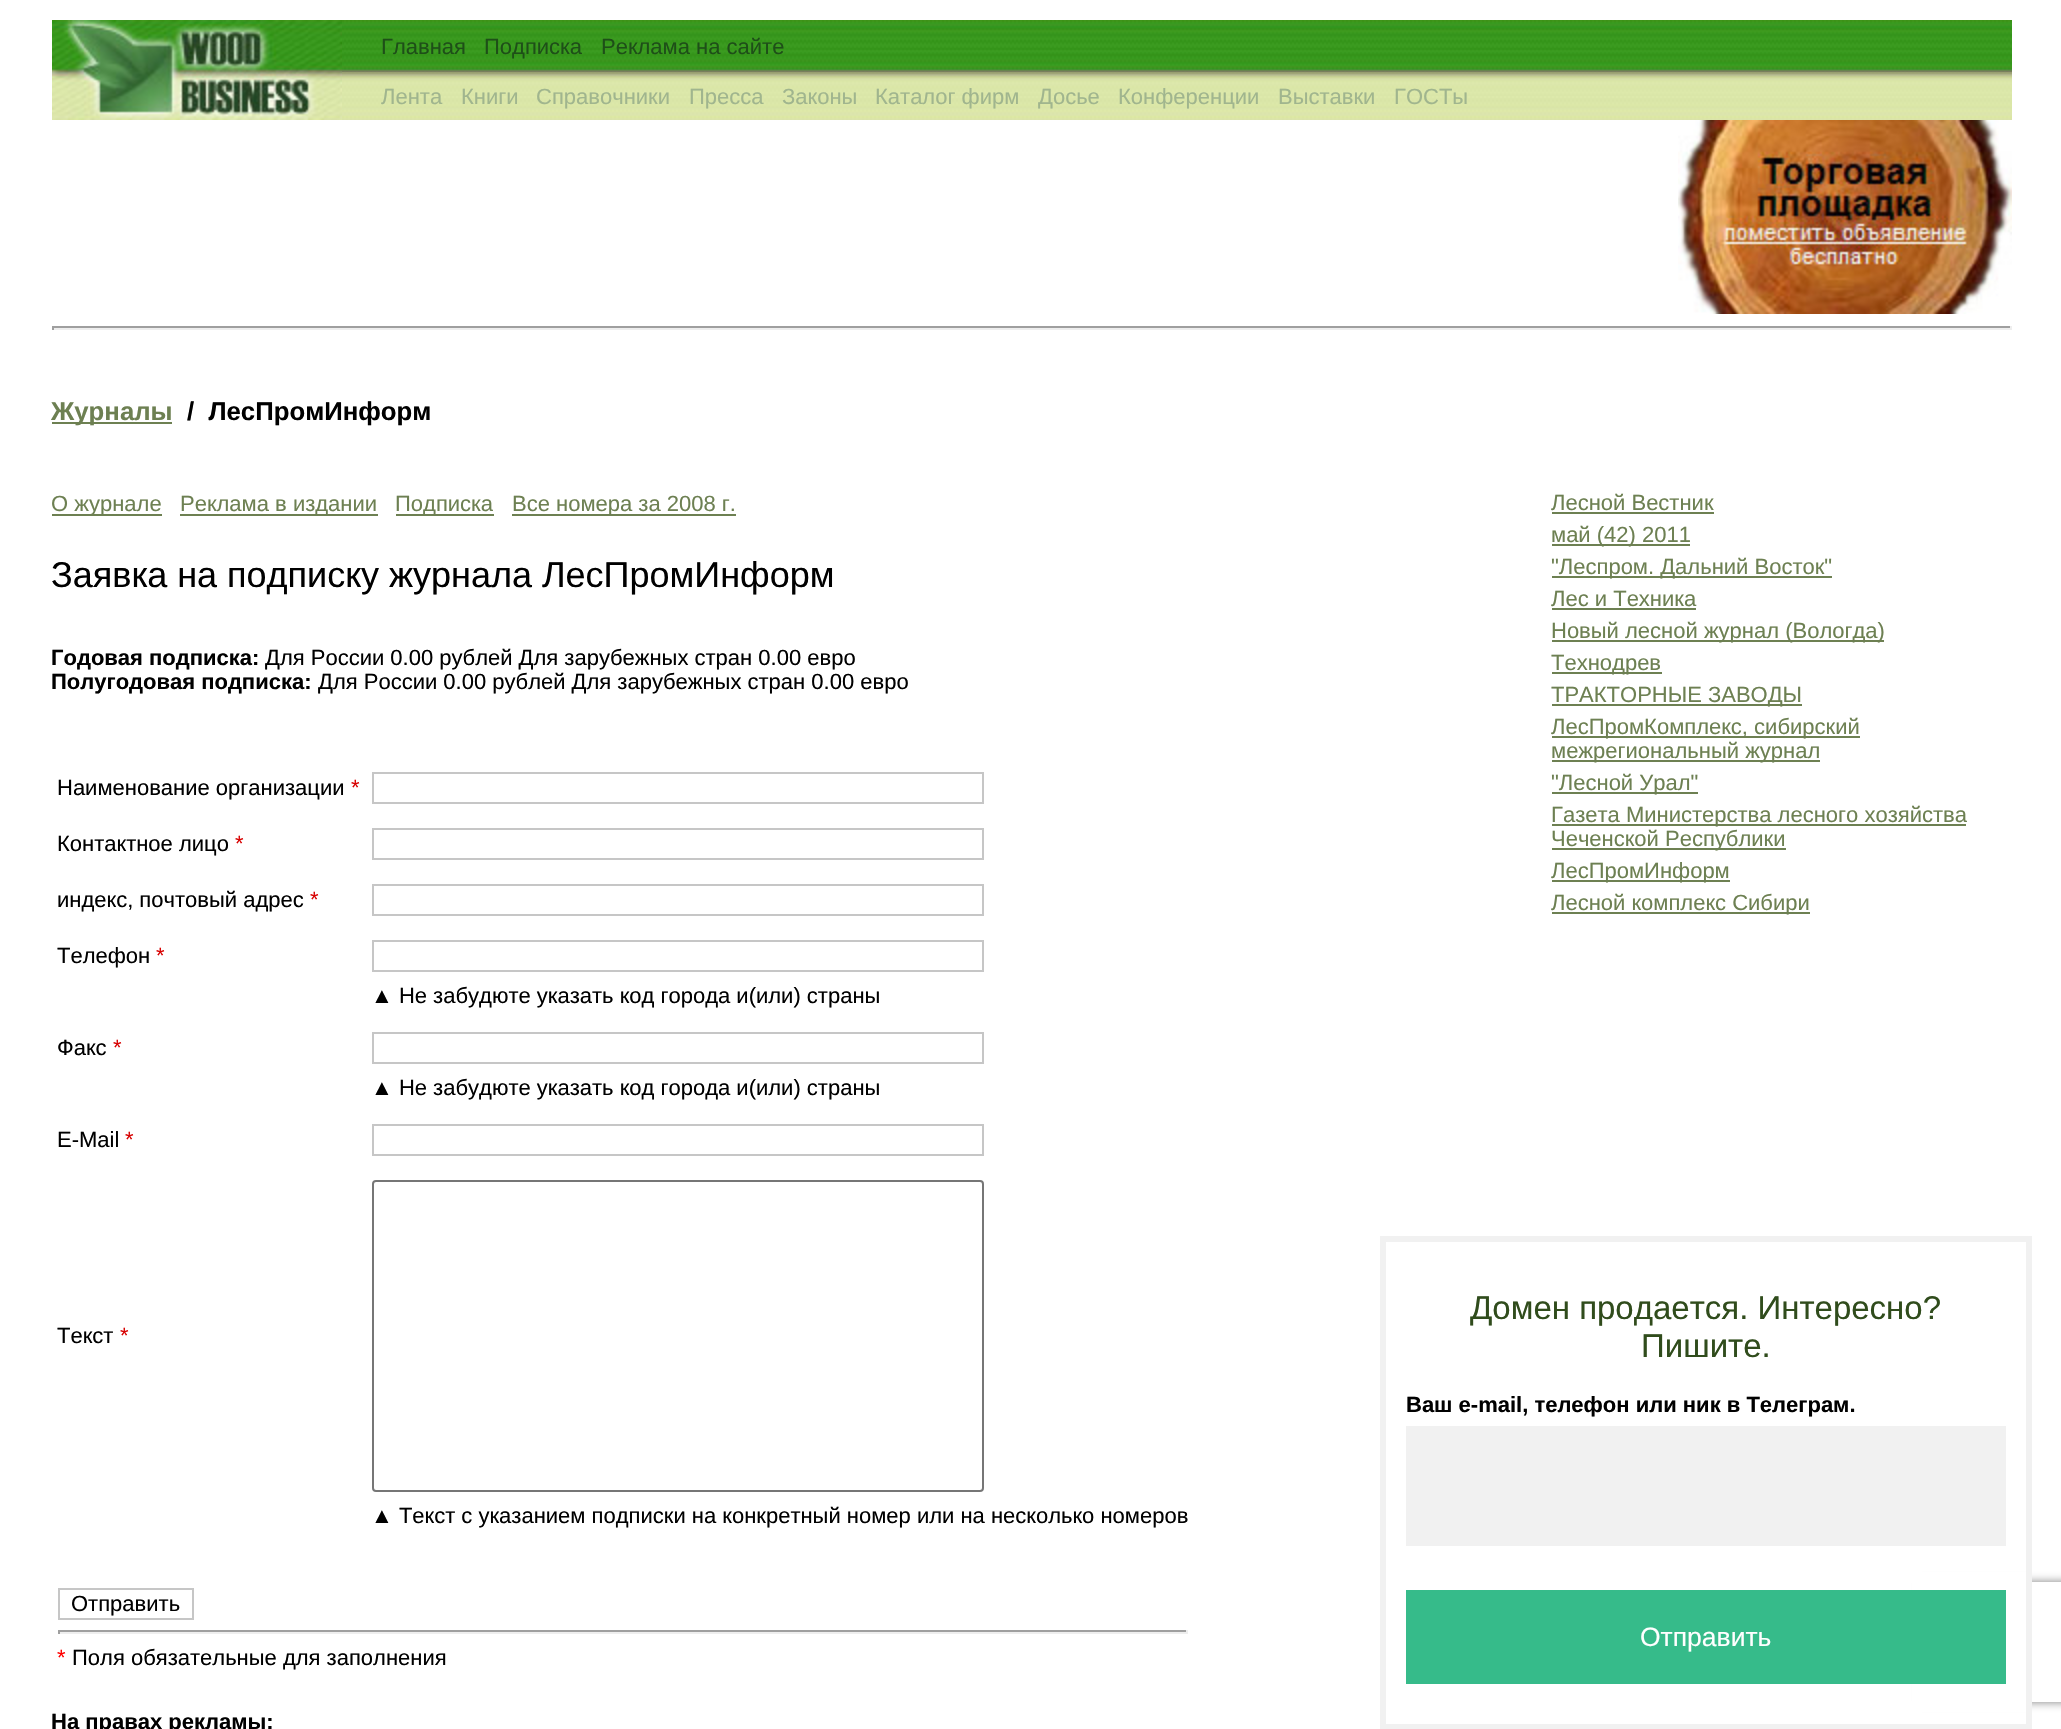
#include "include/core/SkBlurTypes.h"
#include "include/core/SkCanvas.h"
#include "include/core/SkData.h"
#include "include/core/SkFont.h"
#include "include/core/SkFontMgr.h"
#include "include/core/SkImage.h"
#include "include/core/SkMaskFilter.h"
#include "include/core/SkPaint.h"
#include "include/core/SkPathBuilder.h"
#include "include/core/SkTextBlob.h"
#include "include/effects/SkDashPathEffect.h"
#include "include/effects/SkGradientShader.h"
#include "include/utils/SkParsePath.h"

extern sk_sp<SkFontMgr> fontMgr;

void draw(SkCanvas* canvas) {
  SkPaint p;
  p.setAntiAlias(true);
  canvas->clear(SK_ColorWHITE);
  canvas->drawImageRect(SkImages::DeferredFromEncodedData(SkData::MakeFromFileName("images/1.png")), SkRect::MakeLTRB(52, 20, 342, 120), SkSamplingOptions());
  canvas->drawImageRect(SkImages::DeferredFromEncodedData(SkData::MakeFromFileName("images/2.png")), SkRect::MakeLTRB(342, 20, 1926, 72), SkSamplingOptions());
  canvas->drawImageRect(SkImages::DeferredFromEncodedData(SkData::MakeFromFileName("images/3.png")), SkRect::MakeLTRB(1926, 20, 2012, 72), SkSamplingOptions());
  canvas->drawImageRect(SkImages::DeferredFromEncodedData(SkData::MakeFromFileName("images/4.png")), SkRect::MakeLTRB(342, 72, 1926, 120), SkSamplingOptions());
  canvas->drawImageRect(SkImages::DeferredFromEncodedData(SkData::MakeFromFileName("images/5.png")), SkRect::MakeLTRB(1926, 72, 2012, 120), SkSamplingOptions());
  canvas->drawImageRect(SkImages::DeferredFromEncodedData(SkData::MakeFromFileName("images/6.png")), SkRect::MakeLTRB(1678, 120, 2012, 314), SkSamplingOptions());
  p.setColor(SkColorSetRGB(159, 159, 159));
  canvas->drawRect(SkRect::MakeLTRB(52, 326, 2012, 328), p);
  p.setColor(SkColorSetRGB(238, 238, 238));
  canvas->drawRect(SkRect::MakeLTRB(2010, 326, 2012, 330), p);
  canvas->drawRect(SkRect::MakeLTRB(52, 328, 2012, 330), p);
  p.setColor(SkColorSetRGB(159, 159, 159));
  canvas->drawRect(SkRect::MakeLTRB(52, 326, 54, 330), p);
  p.setColor(SkColorSetRGB(109, 128, 82));
  canvas->drawRect(SkRect::MakeLTRB(52, 422, 172, 424), p);
  canvas->drawRect(SkRect::MakeLTRB(52, 514, 162, 516), p);
  canvas->drawRect(SkRect::MakeLTRB(180, 514, 378, 516), p);
  canvas->drawRect(SkRect::MakeLTRB(396, 514, 494, 516), p);
  canvas->drawRect(SkRect::MakeLTRB(512, 514, 736, 516), p);
  p.setStyle(SkPaint::kStroke_Style);
  p.setStrokeWidth(2);
  p.setColor(SkColorSetRGB(198, 198, 198));
  canvas->drawRect(SkRect::MakeLTRB(373, 773, 983, 803), p);
  canvas->drawRect(SkRect::MakeLTRB(373, 829, 983, 859), p);
  canvas->drawRect(SkRect::MakeLTRB(373, 885, 983, 915), p);
  canvas->drawRect(SkRect::MakeLTRB(373, 941, 983, 971), p);
  canvas->drawRect(SkRect::MakeLTRB(373, 1033, 983, 1063), p);
  canvas->drawRect(SkRect::MakeLTRB(373, 1125, 983, 1155), p);
  p.setColor(SkColorSetRGB(118, 118, 118));
  canvas->drawRoundRect(SkRect::MakeLTRB(373, 1181, 983, 1491), 3, 3, p);
  p.setColor(SkColorSetRGB(198, 198, 198));
  canvas->drawRect(SkRect::MakeLTRB(59, 1589, 193, 1619), p);
  p.setStyle(SkPaint::kFill_Style);
  p.setColor(SkColorSetRGB(159, 159, 159));
  canvas->drawRect(SkRect::MakeLTRB(58, 1630, 1188, 1632), p);
  p.setColor(SkColorSetRGB(238, 238, 238));
  canvas->drawRect(SkRect::MakeLTRB(1186, 1630, 1188, 1634), p);
  canvas->drawRect(SkRect::MakeLTRB(58, 1632, 1188, 1634), p);
  p.setColor(SkColorSetRGB(159, 159, 159));
  canvas->drawRect(SkRect::MakeLTRB(58, 1630, 60, 1634), p);
  p.setColor(SkColorSetRGB(109, 128, 82));
  canvas->drawRect(SkRect::MakeLTRB(1552, 512, 1714, 514), p);
  canvas->drawRect(SkRect::MakeLTRB(1552, 544, 1690, 546), p);
  canvas->drawRect(SkRect::MakeLTRB(1552, 576, 1832, 578), p);
  canvas->drawRect(SkRect::MakeLTRB(1552, 608, 1696, 610), p);
  canvas->drawRect(SkRect::MakeLTRB(1552, 640, 1884, 642), p);
  canvas->drawRect(SkRect::MakeLTRB(1552, 672, 1662, 674), p);
  canvas->drawRect(SkRect::MakeLTRB(1552, 704, 1802, 706), p);
  canvas->drawRect(SkRect::MakeLTRB(1552, 736, 1860, 738), p);
  canvas->drawRect(SkRect::MakeLTRB(1552, 760, 1820, 762), p);
  canvas->drawRect(SkRect::MakeLTRB(1552, 792, 1698, 794), p);
  canvas->drawRect(SkRect::MakeLTRB(1552, 824, 1966, 826), p);
  canvas->drawRect(SkRect::MakeLTRB(1552, 848, 1786, 850), p);
  canvas->drawRect(SkRect::MakeLTRB(1552, 880, 1730, 882), p);
  canvas->drawRect(SkRect::MakeLTRB(1552, 912, 1810, 914), p);
  canvas->save();
  canvas->clipPath(SkPathBuilder(SkPathFillType::kEvenOdd).moveTo(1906, 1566).lineTo(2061, 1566).lineTo(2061, 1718).lineTo(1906, 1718).close().moveTo(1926, 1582).lineTo(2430, 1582).cubicTo(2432, 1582, 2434, 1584, 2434, 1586).lineTo(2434, 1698).cubicTo(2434, 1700, 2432, 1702, 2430, 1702).lineTo(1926, 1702).cubicTo(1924, 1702, 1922, 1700, 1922, 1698).lineTo(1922, 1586).cubicTo(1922, 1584, 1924, 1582, 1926, 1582).close().detach(), true);
  p.setColor(SkColorSetRGB(128, 128, 128));
  p.setMaskFilter(SkMaskFilter::MakeBlur(kNormal_SkBlurStyle, 5));
  canvas->drawRoundRect(SkRect::MakeLTRB(1922, 1582, 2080, 1702), 4, 4, p);
  p.setMaskFilter(nullptr);
  canvas->restore();
  p.setStyle(SkPaint::kStroke_Style);
  p.setStrokeWidth(6);
  p.setColor(SkColorSetRGB(241, 241, 241));
  canvas->drawRect(SkRect::MakeLTRB(1383, 1239, 2029, 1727), p);
  p.setStyle(SkPaint::kFill_Style);
  p.setColor(SK_ColorWHITE);
  canvas->drawRect(SkRect::MakeLTRB(1912, 1572, 2026, 1712), p);
  p.setColor(SkColorSetRGB(241, 241, 241));
  canvas->drawRect(SkRect::MakeLTRB(1406, 1426, 2006, 1546), p);
  p.setColor(SkColorSetRGB(54, 187, 138));
  canvas->drawRect(SkRect::MakeLTRB(1406, 1590, 2006, 1684), p);
  SkFont font1(fontMgr->matchFamilyStyle("Liberation Sans", SkFontStyle::Normal()), 22);
  font1.setSubpixel(true);
  p.setColor(SkColorSetRGB(30, 79, 24));
  canvas->drawString("Главная", 381, 54, font1, p);
  canvas->drawString("Подписка", 484, 54, font1, p);
  canvas->drawString("Реклама на сайте", 601, 54, font1, p);
  p.setColor(SkColorSetRGB(160, 181, 142));
  canvas->drawString("Лента", 381, 104, font1, p);
  canvas->drawString("Книги", 461, 104, font1, p);
  canvas->drawString("Справочники", 536, 104, font1, p);
  canvas->drawString("Пресса", 689, 104, font1, p);
  canvas->drawString("Законы", 782, 104, font1, p);
  canvas->drawString("Каталог фирм", 875, 104, font1, p);
  canvas->drawString("Досье", 1038, 104, font1, p);
  canvas->drawString("Конференции", 1118, 104, font1, p);
  canvas->drawString("Выставки", 1278, 104, font1, p);
  canvas->drawString("ГОСТы", 1394, 104, font1, p);
  SkFont font2(fontMgr->matchFamilyStyle("Liberation Sans", SkFontStyle::Bold()), 25.75f);
  font2.setSubpixel(true);
  p.setColor(SkColorSetRGB(109, 128, 82));
  canvas->drawString("Журналы", 51, 420, font2, p);
  p.setColor(SK_ColorBLACK);
  canvas->drawString("/  ЛесПромИнформ", 187, 420, font2, p);
  p.setColor(SkColorSetRGB(109, 128, 82));
  canvas->drawString("О журнале", 51, 511, font1, p);
  canvas->drawString("Реклама в издании", 180, 511, font1, p);
  canvas->drawString("Подписка", 395, 511, font1, p);
  canvas->drawString("Все номера за 2008 г.", 512, 511, font1, p);
  SkFont font3(fontMgr->matchFamilyStyle("Liberation Sans", SkFontStyle::Normal()), 36);
  font3.setSubpixel(true);
  p.setColor(SK_ColorBLACK);
  canvas->drawString("Заявка на подписку журнала ЛесПромИнформ", 51, 587, font3, p);
  SkFont font4(fontMgr->matchFamilyStyle("Liberation Sans", SkFontStyle::Bold()), 22);
  font4.setSubpixel(true);
  canvas->drawString("Годовая подписка:", 51, 665, font4, p);
  canvas->drawString("Для России 0.00 рублей Для зарубежных стран 0.00 евро", 265, 665, font1, p);
  canvas->drawString("Полугодовая подписка:", 51, 689, font4, p);
  canvas->drawString("Для России 0.00 рублей Для зарубежных стран 0.00 евро", 318, 689, font1, p);
  canvas->drawString("Наименование организации", 57, 795, font1, p);
  p.setColor(SkColorSetRGB(216, 3, 3));
  canvas->drawString("*", 351, 795, font1, p);
  p.setColor(SK_ColorBLACK);
  canvas->drawString("Контактное лицо", 57, 851, font1, p);
  p.setColor(SkColorSetRGB(216, 3, 3));
  canvas->drawString("*", 235, 851, font1, p);
  p.setColor(SK_ColorBLACK);
  canvas->drawString("индекс, почтовый адрес", 57, 907, font1, p);
  p.setColor(SkColorSetRGB(216, 3, 3));
  canvas->drawString("*", 310, 907, font1, p);
  p.setColor(SK_ColorBLACK);
  canvas->drawString("Телефон", 57, 963, font1, p);
  p.setColor(SkColorSetRGB(216, 3, 3));
  canvas->drawString("*", 156, 963, font1, p);
  p.setColor(SK_ColorBLACK);
  canvas->drawString("▲ Не забудюте указать код города и(или) страны", 371, 1003, font1, p);
  canvas->drawString("Факс", 57, 1055, font1, p);
  p.setColor(SkColorSetRGB(216, 3, 3));
  canvas->drawString("*", 113, 1055, font1, p);
  p.setColor(SK_ColorBLACK);
  canvas->drawString("▲ Не забудюте указать код города и(или) страны", 371, 1095, font1, p);
  canvas->drawString("E-Mail", 57, 1147, font1, p);
  p.setColor(SkColorSetRGB(216, 3, 3));
  canvas->drawString("*", 125, 1147, font1, p);
  p.setColor(SK_ColorBLACK);
  canvas->drawString("Текст", 57, 1343, font1, p);
  p.setColor(SkColorSetRGB(216, 3, 3));
  canvas->drawString("*", 120, 1343, font1, p);
  p.setColor(SK_ColorBLACK);
  canvas->drawString("▲ Текст с указанием подписки на конкретный номер или на несколько номеров", 371, 1523, font1, p);
  canvas->drawString("Отправить", 71, 1611, font1, p);
  p.setColor(SkColorSetRGB(255, 0, 0));
  canvas->drawString("*", 57, 1665, font1, p);
  p.setColor(SK_ColorBLACK);
  canvas->drawString("Поля обязательные для заполнения", 72, 1665, font1, p);
  p.setColor(SkColorSetRGB(109, 128, 82));
  canvas->drawString("Лесной Вестник", 1551, 510, font1, p);
  canvas->drawString("май (42) 2011", 1551, 542, font1, p);
  canvas->drawString("\"Леспром. Дальний Восток\"", 1551, 574, font1, p);
  canvas->drawString("Лес и Техника", 1551, 606, font1, p);
  canvas->drawString("Новый лесной журнал (Вологда)", 1551, 638, font1, p);
  canvas->drawString("Технодрев", 1551, 670, font1, p);
  canvas->drawString("ТРАКТОРНЫЕ ЗАВОДЫ", 1551, 702, font1, p);
  canvas->drawString("ЛесПромКомплекс, сибирский", 1551, 734, font1, p);
  canvas->drawString("межрегиональный журнал", 1551, 758, font1, p);
  canvas->drawString("\"Лесной Урал\"", 1551, 790, font1, p);
  canvas->drawString("Газета Министерства лесного хозяйства", 1551, 822, font1, p);
  canvas->drawString("Чеченской Республики", 1551, 846, font1, p);
  canvas->drawString("ЛесПромИнформ", 1551, 878, font1, p);
  canvas->drawString("Лесной комплекс Сибири", 1551, 910, font1, p);
  p.setColor(SK_ColorBLACK);
  canvas->drawString("На правах рекламы:", 51, 1729, font4, p);
  SkFont font5(fontMgr->matchFamilyStyle("Liberation Sans", SkFontStyle::Normal()), 33);
  font5.setSubpixel(true);
  p.setColor(SkColorSetRGB(48, 76, 28));
  canvas->drawString("Домен продается. Интересно?", 1470, 1319, font5, p);
  canvas->drawString("Пишите.", 1641, 1357, font5, p);
  p.setColor(SK_ColorBLACK);
  canvas->drawString("Ваш e-mail, телефон или ник в Телеграм.", 1406, 1412, font4, p);
  SkFont font6(fontMgr->matchFamilyStyle("Liberation Sans", SkFontStyle::Normal()), 26.5f);
  font6.setSubpixel(true);
  p.setColor(SK_ColorWHITE);
  canvas->drawString("Отправить", 1640, 1646, font6, p);
}
